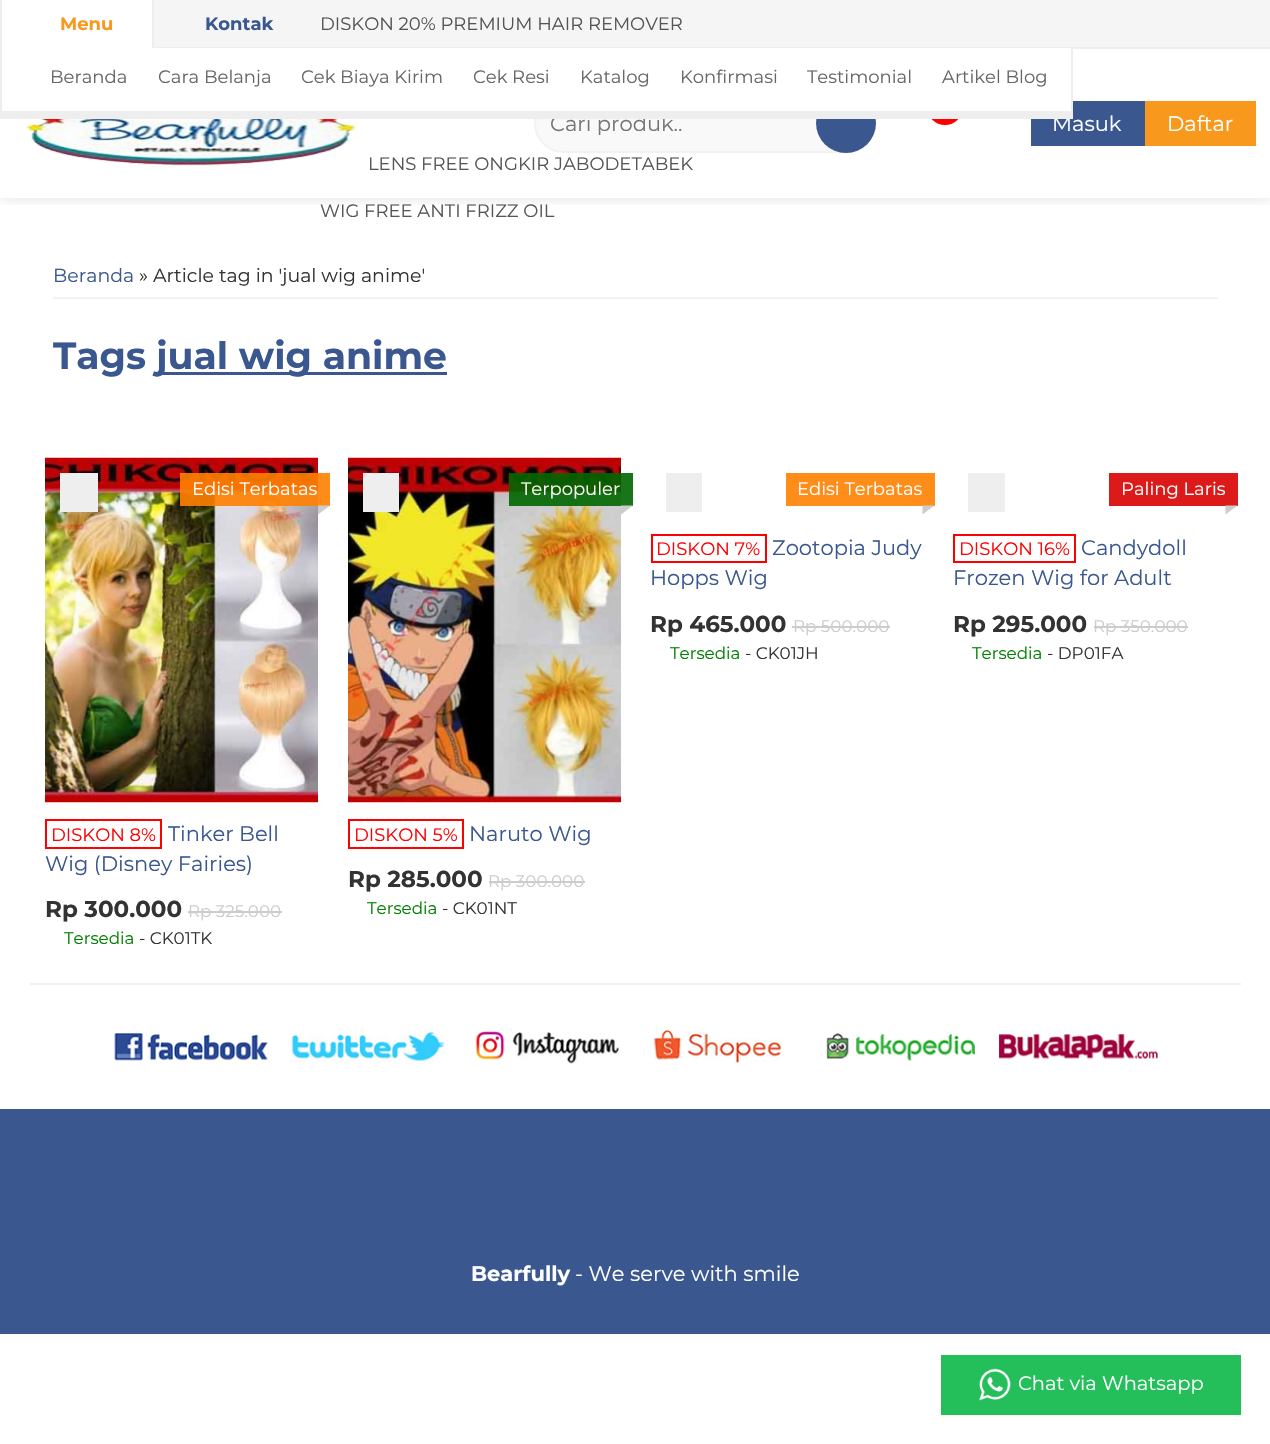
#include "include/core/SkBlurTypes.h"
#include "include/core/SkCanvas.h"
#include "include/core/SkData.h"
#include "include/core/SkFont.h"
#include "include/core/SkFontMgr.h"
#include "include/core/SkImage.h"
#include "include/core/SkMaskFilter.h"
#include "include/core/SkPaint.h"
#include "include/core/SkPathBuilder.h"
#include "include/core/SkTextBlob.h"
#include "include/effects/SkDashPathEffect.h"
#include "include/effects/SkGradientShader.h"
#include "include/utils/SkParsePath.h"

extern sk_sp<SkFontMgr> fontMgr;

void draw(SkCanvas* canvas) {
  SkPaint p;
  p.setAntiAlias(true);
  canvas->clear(SK_ColorWHITE);
  canvas->save();
  canvas->clipRect(SkRect::MakeLTRB(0, 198, 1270, 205));
  p.setColor(SkColorSetARGB(20, 0, 0, 0));
  p.setMaskFilter(SkMaskFilter::MakeBlur(kNormal_SkBlurStyle, 6));
  canvas->drawRect(SkRect::MakeLTRB(0, 3, 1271, 201), p);
  p.setMaskFilter(nullptr);
  canvas->restore();
  p.setColor(SkColorSetRGB(245, 245, 245));
  canvas->drawRect(SkRect::MakeLTRB(154, 0, 1270, 47), p);
  p.setColor(SkColorSetRGB(238, 238, 238));
  canvas->drawRect(SkRect::MakeLTRB(154, 47, 1270, 49), p);
  canvas->drawRect(SkRect::MakeLTRB(152, 0, 154, 48), p);
  canvas->drawRect(SkRect::MakeLTRB(0, 0, 2, 48), p);
  p.setColor(SkColorSetRGB(249, 249, 249));
  canvas->drawRoundRect(SkRect::MakeLTRB(535, 94, 875, 152), 29, 29, p);
  p.setStyle(SkPaint::kStroke_Style);
  p.setStrokeWidth(2);
  p.setColor(SkColorSetRGB(242, 242, 242));
  canvas->drawRoundRect(SkRect::MakeLTRB(535, 94, 875, 152), 29, 29, p);
  p.setStyle(SkPaint::kFill_Style);
  p.setColor(SkColorSetRGB(58, 88, 143));
  canvas->drawCircle(846, 123, 30, p);
  p.setColor(SkColorSetRGB(255, 0, 0));
  canvas->drawCircle(945, 107, 18, p);
  p.setColor(SkColorSetRGB(58, 88, 143));
  canvas->drawRect(SkRect::MakeLTRB(1031, 101, 1145, 146), p);
  p.setColor(SK_ColorWHITE);
  canvas->drawRect(SkRect::MakeLTRB(154, 48, 1071, 111), p);
  canvas->drawImageRect(SkImages::DeferredFromEncodedData(SkData::MakeFromFileName("images/1.png")), SkRect::MakeLTRB(26, 119, 365, 168), SkSamplingOptions());
  p.setColor(SkColorSetRGB(248, 153, 29));
  canvas->drawRect(SkRect::MakeLTRB(1145, 101, 1256, 146), p);
  p.setColor(SkColorSetRGB(242, 242, 242));
  canvas->drawRect(SkRect::MakeLTRB(53, 297, 1218, 299), p);
  p.setColor(SkColorSetRGB(58, 88, 143));
  canvas->drawRect(SkRect::MakeLTRB(156, 372, 447, 375), p);
  canvas->drawImageRect(SkImages::DeferredFromEncodedData(SkData::MakeFromFileName("images/2.png")), SkRect::MakeLTRB(45, 457, 318, 803), SkSamplingOptions());
  p.setColor(SkColorSetRGB(238, 238, 238));
  canvas->drawRect(SkRect::MakeLTRB(60, 473, 98, 512), p);
  p.setColor(SkColorSetARGB(230, 255, 128, 0));
  canvas->drawRect(SkRect::MakeLTRB(180, 473, 330, 506), p);
  p.setColor(SkColorSetRGB(204, 204, 204));
  canvas->drawPath(SkPathBuilder().moveTo(318, 514.5f).lineTo(318, 505.5f).lineTo(330, 505.5f).close().detach(), p);
  p.setStyle(SkPaint::kStroke_Style);
  p.setColor(SkColorSetRGB(255, 0, 0));
  canvas->drawRect(SkRect::MakeLTRB(46, 820, 161, 848), p);
  p.setStyle(SkPaint::kFill_Style);
  p.setColor(SkColorSetRGB(204, 204, 204));
  canvas->drawRect(SkRect::MakeLTRB(188, 911, 282, 913), p);
  canvas->drawImageRect(SkImages::DeferredFromEncodedData(SkData::MakeFromFileName("images/3.png")), SkRect::MakeLTRB(348, 457, 621, 803), SkSamplingOptions());
  p.setColor(SkColorSetRGB(238, 238, 238));
  canvas->drawRect(SkRect::MakeLTRB(363, 473, 399, 512), p);
  p.setColor(SkColorSetARGB(230, 0, 102, 0));
  canvas->drawRect(SkRect::MakeLTRB(509, 473, 633, 506), p);
  p.setColor(SkColorSetRGB(204, 204, 204));
  canvas->drawPath(SkPathBuilder().moveTo(621, 514.5f).lineTo(621, 505.5f).lineTo(633, 505.5f).close().detach(), p);
  p.setStyle(SkPaint::kStroke_Style);
  p.setColor(SkColorSetRGB(255, 0, 0));
  canvas->drawRect(SkRect::MakeLTRB(349, 820, 463, 848), p);
  p.setStyle(SkPaint::kFill_Style);
  p.setColor(SkColorSetRGB(204, 204, 204));
  canvas->drawRect(SkRect::MakeLTRB(489, 881, 585, 883), p);
  p.setColor(SkColorSetRGB(238, 238, 238));
  canvas->drawRect(SkRect::MakeLTRB(666, 473, 702, 512), p);
  p.setColor(SkColorSetRGB(255, 141, 26));
  canvas->drawRect(SkRect::MakeLTRB(786, 473, 935, 506), p);
  p.setColor(SkColorSetRGB(204, 204, 204));
  canvas->drawPath(SkPathBuilder().moveTo(922.5f, 514.5f).lineTo(922.5f, 505.5f).lineTo(934.5f, 505.5f).close().detach(), p);
  p.setStyle(SkPaint::kStroke_Style);
  p.setColor(SkColorSetRGB(255, 0, 0));
  canvas->drawRect(SkRect::MakeLTRB(652, 535, 766, 562), p);
  p.setStyle(SkPaint::kFill_Style);
  p.setColor(SkColorSetRGB(204, 204, 204));
  canvas->drawRect(SkRect::MakeLTRB(792, 626, 890, 628), p);
  p.setColor(SkColorSetRGB(238, 238, 238));
  canvas->drawRect(SkRect::MakeLTRB(968, 473, 1005, 512), p);
  p.setColor(SkColorSetRGB(221, 26, 26));
  canvas->drawRect(SkRect::MakeLTRB(1109, 473, 1238, 506), p);
  p.setColor(SkColorSetRGB(204, 204, 204));
  canvas->drawPath(SkPathBuilder().moveTo(1225.5f, 514.5f).lineTo(1225.5f, 505.5f).lineTo(1237.5f, 505.5f).close().detach(), p);
  p.setStyle(SkPaint::kStroke_Style);
  p.setColor(SkColorSetRGB(255, 0, 0));
  canvas->drawRect(SkRect::MakeLTRB(954, 535, 1075, 562), p);
  p.setStyle(SkPaint::kFill_Style);
  p.setColor(SkColorSetRGB(204, 204, 204));
  canvas->drawRect(SkRect::MakeLTRB(1094, 626, 1188, 628), p);
  p.setColor(SkColorSetRGB(242, 242, 242));
  canvas->drawRect(SkRect::MakeLTRB(30, 983, 1241, 985), p);
  canvas->drawImageRect(SkImages::DeferredFromEncodedData(SkData::MakeFromFileName("images/4.png")), SkRect::MakeLTRB(114, 1032, 268, 1061), SkSamplingOptions());
  canvas->drawImageRect(SkImages::DeferredFromEncodedData(SkData::MakeFromFileName("images/5.png")), SkRect::MakeLTRB(290, 1029, 445, 1063), SkSamplingOptions());
  canvas->drawImageRect(SkImages::DeferredFromEncodedData(SkData::MakeFromFileName("images/6.png")), SkRect::MakeLTRB(475, 1031, 620, 1064), SkSamplingOptions());
  canvas->drawImageRect(SkImages::DeferredFromEncodedData(SkData::MakeFromFileName("images/7.png")), SkRect::MakeLTRB(653, 1029, 782, 1064), SkSamplingOptions());
  canvas->drawImageRect(SkImages::DeferredFromEncodedData(SkData::MakeFromFileName("images/8.png")), SkRect::MakeLTRB(826, 1033, 975, 1061), SkSamplingOptions());
  canvas->drawImageRect(SkImages::DeferredFromEncodedData(SkData::MakeFromFileName("images/9.png")), SkRect::MakeLTRB(999, 1034, 1158, 1060), SkSamplingOptions());
  p.setColor(SkColorSetRGB(58, 88, 143));
  canvas->drawRect(SkRect::MakeLTRB(0, 1109, 1270, 1334), p);
  p.setColor(SkColorSetRGB(36, 190, 91));
  canvas->drawRect(SkRect::MakeLTRB(941, 1355, 1241, 1415), p);
  canvas->drawImageRect(SkImages::DeferredFromEncodedData(SkData::MakeFromFileName("images/10.png")), SkRect::MakeLTRB(979, 1368, 1011, 1401), SkSamplingOptions());
  SkFont font1(fontMgr->matchFamilyStyle("Montserrat", SkFontStyle::Bold()), 18);
  font1.setSubpixel(true);
  p.setColor(SkColorSetRGB(58, 88, 143));
  canvas->drawString("Kontak", 205, 30, font1, p);
  p.setColor(SkColorSetRGB(248, 153, 29));
  canvas->drawString("Menu", 60, 30, font1, p);
  SkFont font2(fontMgr->matchFamilyStyle("Montserrat", SkFontStyle::Normal()), 18);
  font2.setSubpixel(true);
  p.setColor(SkColorSetRGB(102, 102, 102));
  canvas->drawString("Beranda", 50, 83, font2, p);
  canvas->drawString("Cara Belanja", 158, 83, font2, p);
  canvas->drawString("Cek Biaya Kirim", 301, 83, font2, p);
  canvas->drawString("Cek Resi", 473, 83, font2, p);
  canvas->drawString("Katalog", 580, 83, font2, p);
  canvas->drawString("Konfirmasi", 680, 83, font2, p);
  canvas->drawString("Testimonial", 807, 83, font2, p);
  canvas->drawString("Artikel Blog", 942, 83, font2, p);
  p.setColor(SkColorSetRGB(85, 85, 85));
  canvas->drawString("DISKON 20% PREMIUM HAIR REMOVER", 320, 30, font2, p);
  canvas->drawString("LENS FREE ONGKIR JABODETABEK", 368, 170, font2, p);
  canvas->drawString("WIG FREE ANTI FRIZZ OIL", 320, 217, font2, p);
  SkFont font3(fontMgr->matchFamilyStyle("Montserrat", SkFontStyle::Normal()), 21);
  font3.setSubpixel(true);
  p.setColor(SkColorSetRGB(117, 117, 117));
  canvas->drawString("Cari produk..", 550, 131, font3, p);
  p.setColor(SK_ColorWHITE);
  canvas->drawString("Masuk", 1052, 131, font3, p);
  p.setColor(SkColorSetRGB(238, 238, 238));
  canvas->drawRect(SkRect::MakeLTRB(1071, 48, 1073, 119), p);
  canvas->drawRect(SkRect::MakeLTRB(0, 111, 1073, 119), p);
  canvas->drawRect(SkRect::MakeLTRB(0, 48, 2, 119), p);
  p.setColor(SK_ColorWHITE);
  canvas->drawString("Daftar", 1167, 131, font3, p);
  SkFont font4(fontMgr->matchFamilyStyle("Montserrat", SkFontStyle::Normal()), 18.9f);
  font4.setSubpixel(true);
  p.setColor(SkColorSetRGB(58, 88, 143));
  canvas->drawString("Beranda", 53, 282, font4, p);
  p.setColor(SkColorSetRGB(51, 51, 51));
  canvas->drawString("» Article tag in 'jual wig anime'", 139, 282, font4, p);
  SkFont font5(fontMgr->matchFamilyStyle("Montserrat", SkFontStyle::Bold()), 37.75f);
  font5.setSubpixel(true);
  p.setColor(SkColorSetRGB(58, 88, 143));
  canvas->drawString("Tags", 53, 369, font5, p);
  canvas->drawString("jual wig anime", 156, 369, font5, p);
  p.setColor(SK_ColorWHITE);
  canvas->drawString("Edisi Terbatas", 192, 495, font2, p);
  p.setColor(SkColorSetRGB(255, 0, 0));
  canvas->drawString("DISKON 8%", 51, 841, font2, p);
  p.setColor(SkColorSetRGB(58, 88, 143));
  canvas->drawString("Tinker Bell", 168, 841, font3, p);
  canvas->drawString("Wig (Disney Fairies)", 45, 871, font3, p);
  SkFont font6(fontMgr->matchFamilyStyle("Montserrat", SkFontStyle::Bold()), 23);
  font6.setSubpixel(true);
  p.setColor(SkColorSetRGB(51, 51, 51));
  canvas->drawString("Rp 300.000", 45, 917, font6, p);
  SkFont font7(fontMgr->matchFamilyStyle("Montserrat", SkFontStyle::Normal()), 16.75f);
  font7.setSubpixel(true);
  p.setColor(SkColorSetRGB(204, 204, 204));
  canvas->drawString("Rp 325.000", 188, 917, font7, p);
  p.setColor(SkColorSetRGB(0, 128, 0));
  canvas->drawString("Tersedia", 64, 944, font7, p);
  p.setColor(SkColorSetRGB(51, 51, 51));
  canvas->drawString("- CK01TK", 139, 944, font7, p);
  p.setColor(SK_ColorWHITE);
  canvas->drawString("Terpopuler", 521, 495, font2, p);
  p.setColor(SkColorSetRGB(255, 0, 0));
  canvas->drawString("DISKON 5%", 354, 841, font2, p);
  p.setColor(SkColorSetRGB(58, 88, 143));
  canvas->drawString("Naruto Wig", 469, 841, font3, p);
  p.setColor(SkColorSetRGB(51, 51, 51));
  canvas->drawString("Rp 285.000", 348, 887, font6, p);
  p.setColor(SkColorSetRGB(204, 204, 204));
  canvas->drawString("Rp 300.000", 488, 887, font7, p);
  p.setColor(SkColorSetRGB(0, 128, 0));
  canvas->drawString("Tersedia", 367, 914, font7, p);
  p.setColor(SkColorSetRGB(51, 51, 51));
  canvas->drawString("- CK01NT", 442, 914, font7, p);
  p.setColor(SK_ColorWHITE);
  canvas->drawString("Edisi Terbatas", 797, 495, font2, p);
  p.setColor(SkColorSetRGB(255, 0, 0));
  canvas->drawString("DISKON 7%", 656, 555, font2, p);
  p.setColor(SkColorSetRGB(58, 88, 143));
  canvas->drawString("Zootopia Judy", 772, 555, font3, p);
  canvas->drawString("Hopps Wig", 650, 585, font3, p);
  p.setColor(SkColorSetRGB(51, 51, 51));
  canvas->drawString("Rp 465.000", 650, 632, font6, p);
  p.setColor(SkColorSetRGB(204, 204, 204));
  canvas->drawString("Rp 500.000", 793, 632, font7, p);
  p.setColor(SkColorSetRGB(0, 128, 0));
  canvas->drawString("Tersedia", 670, 659, font7, p);
  p.setColor(SkColorSetRGB(51, 51, 51));
  canvas->drawString("- CK01JH", 745, 659, font7, p);
  p.setColor(SK_ColorWHITE);
  canvas->drawString("Paling Laris", 1121, 495, font2, p);
  p.setColor(SkColorSetRGB(255, 0, 0));
  canvas->drawString("DISKON 16%", 959, 555, font2, p);
  p.setColor(SkColorSetRGB(58, 88, 143));
  canvas->drawString("Candydoll", 1081, 555, font3, p);
  canvas->drawString("Frozen Wig for Adult", 953, 585, font3, p);
  p.setColor(SkColorSetRGB(51, 51, 51));
  canvas->drawString("Rp 295.000", 953, 632, font6, p);
  p.setColor(SkColorSetRGB(204, 204, 204));
  canvas->drawString("Rp 350.000", 1093, 632, font7, p);
  p.setColor(SkColorSetRGB(0, 128, 0));
  canvas->drawString("Tersedia", 972, 659, font7, p);
  p.setColor(SkColorSetRGB(51, 51, 51));
  canvas->drawString("- DP01FA", 1047, 659, font7, p);
  SkFont font8(fontMgr->matchFamilyStyle("Montserrat", SkFontStyle::Bold()), 21);
  font8.setSubpixel(true);
  p.setColor(SK_ColorWHITE);
  canvas->drawString("Bearfully", 471, 1281, font8, p);
  canvas->drawString("- We serve with smile", 575, 1281, font3, p);
  SkFont font9(fontMgr->matchFamilyStyle("Montserrat", SkFontStyle::Normal()), 19.5f);
  font9.setSubpixel(true);
  canvas->drawString("Chat via Whatsapp", 1018, 1390, font9, p);
}
